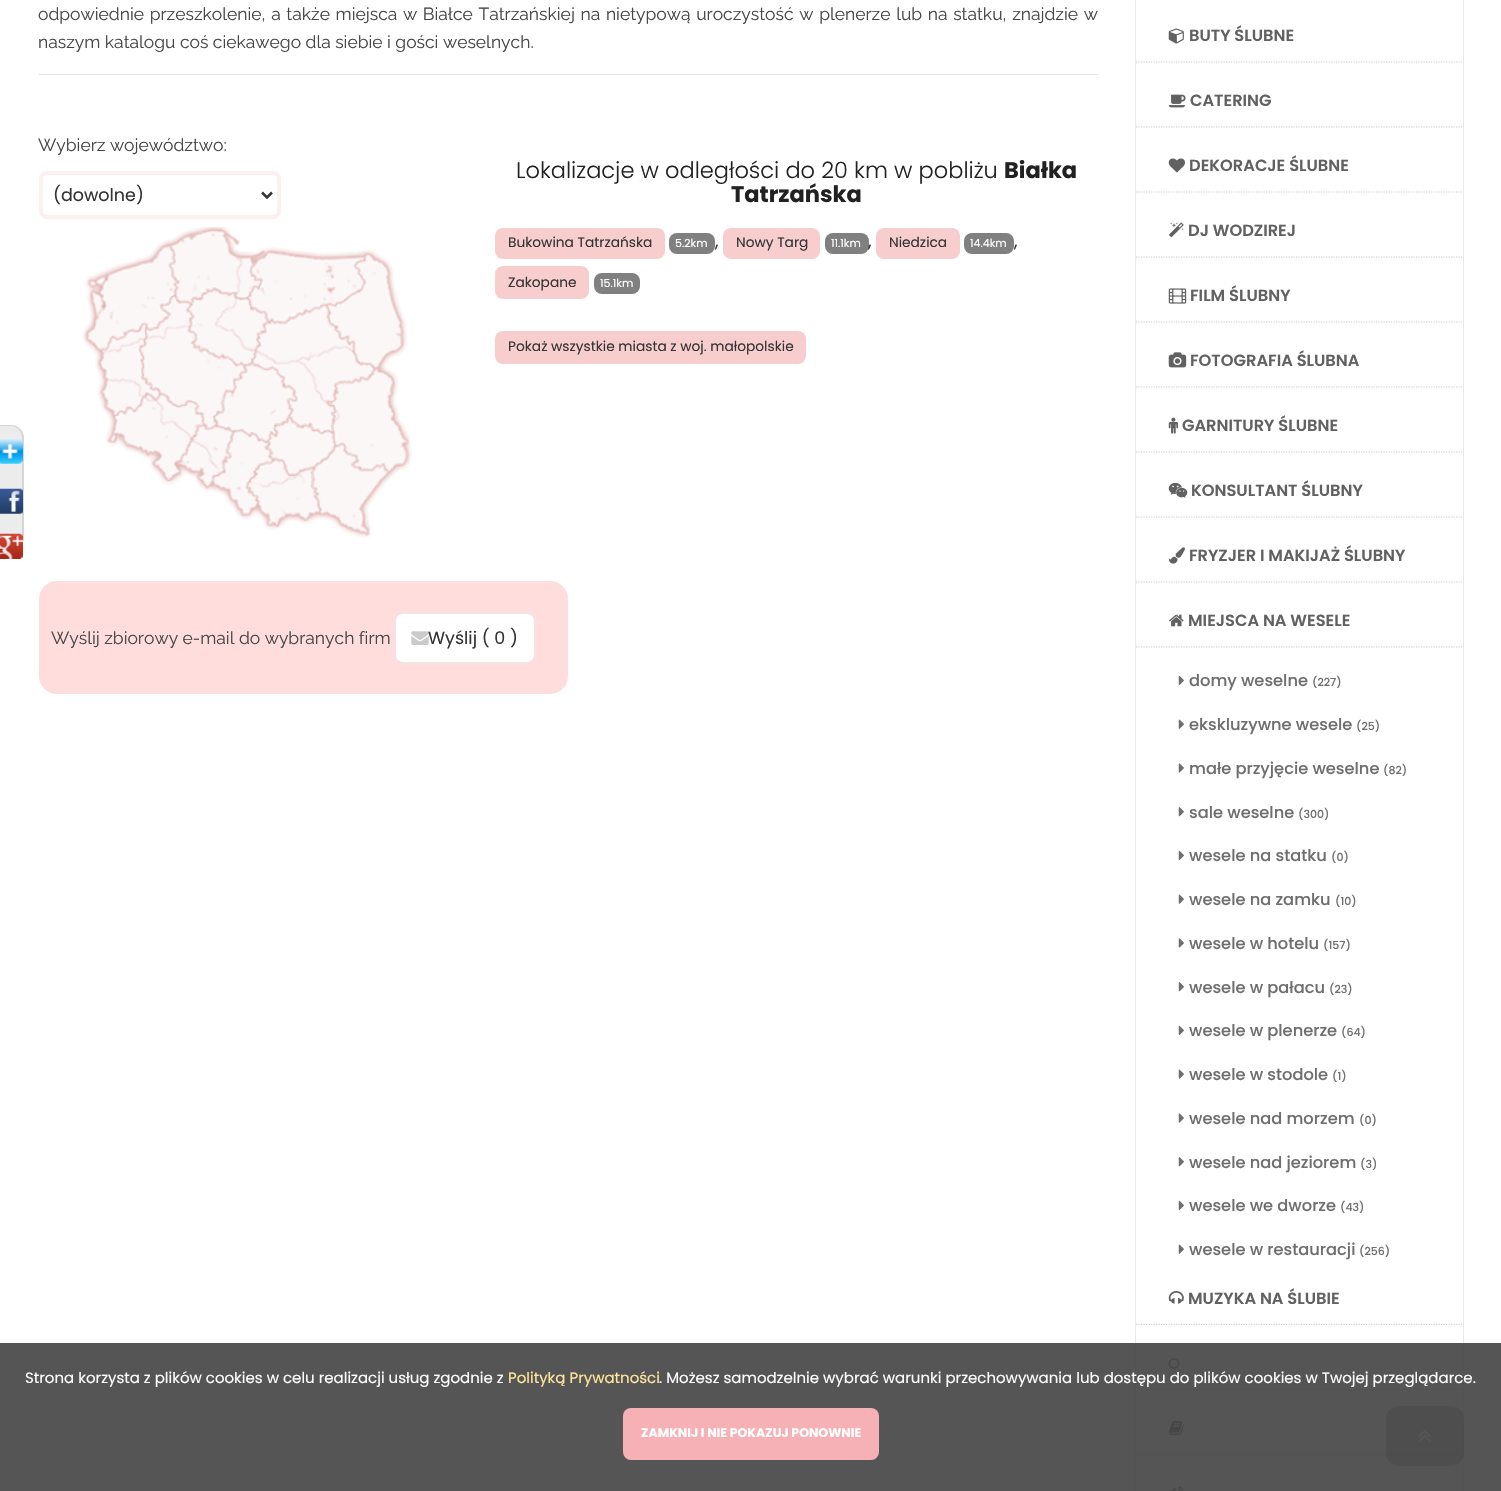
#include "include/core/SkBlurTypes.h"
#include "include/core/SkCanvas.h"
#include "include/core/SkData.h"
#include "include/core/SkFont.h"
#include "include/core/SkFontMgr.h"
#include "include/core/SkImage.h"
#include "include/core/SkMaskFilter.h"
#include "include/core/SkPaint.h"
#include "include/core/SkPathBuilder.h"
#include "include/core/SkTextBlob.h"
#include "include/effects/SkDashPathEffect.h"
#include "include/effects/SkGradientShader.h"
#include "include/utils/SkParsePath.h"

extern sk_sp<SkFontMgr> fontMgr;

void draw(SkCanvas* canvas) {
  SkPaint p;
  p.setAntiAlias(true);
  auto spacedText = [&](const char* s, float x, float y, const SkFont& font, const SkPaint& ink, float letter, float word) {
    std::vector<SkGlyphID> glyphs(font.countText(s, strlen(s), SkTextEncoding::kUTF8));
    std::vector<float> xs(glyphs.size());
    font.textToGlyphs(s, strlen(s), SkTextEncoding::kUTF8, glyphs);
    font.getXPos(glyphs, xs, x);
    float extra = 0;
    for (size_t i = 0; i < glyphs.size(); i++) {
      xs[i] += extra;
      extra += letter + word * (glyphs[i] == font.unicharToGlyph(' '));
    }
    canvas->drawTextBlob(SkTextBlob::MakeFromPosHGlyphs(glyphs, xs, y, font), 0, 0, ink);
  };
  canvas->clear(SK_ColorWHITE);
  p.setColor(SkColorSetRGB(236, 236, 236));
  canvas->drawPath(SkPathBuilder().moveTo(-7, 425).lineTo(11, 425).cubicTo(18, 425, 24, 431, 24, 438).lineTo(24, 537).cubicTo(24, 544, 18, 550, 11, 550).lineTo(-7, 550).close().detach(), p);
  p.setColor(SkColorSetRGB(214, 214, 214));
  canvas->drawPath(SkPathBuilder(SkPathFillType::kEvenOdd).moveTo(-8, 425).lineTo(11, 425).cubicTo(18, 425, 24, 431, 24, 438).lineTo(24, 538).cubicTo(24, 544, 18, 550, 11, 550).lineTo(-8, 550).close().moveTo(-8, 426).lineTo(11, 426).cubicTo(17, 426, 22, 431, 22, 438).lineTo(22, 538).cubicTo(22, 544, 17, 549, 11, 549).lineTo(-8, 549).close().detach(), p);
  canvas->drawImageRect(SkImages::DeferredFromEncodedData(SkData::MakeFromFileName("images/1.png")), SkRect::MakeLTRB(0, 439, 23, 464), SkSamplingOptions());
  canvas->drawImageRect(SkImages::DeferredFromEncodedData(SkData::MakeFromFileName("images/2.png")), SkRect::MakeLTRB(0, 488, 23, 514), SkSamplingOptions());
  canvas->drawImageRect(SkImages::DeferredFromEncodedData(SkData::MakeFromFileName("images/3.png")), SkRect::MakeLTRB(0, 533, 23, 559), SkSamplingOptions());
  p.setColor(SkColorSetRGB(228, 228, 228));
  canvas->drawRect(SkRect::MakeLTRB(39, 74, 1098, 75), p);
  p.setStyle(SkPaint::kStroke_Style);
  p.setStrokeWidth(4);
  p.setColor(SkColorSetRGB(251, 241, 240));
  canvas->drawRoundRect(SkRect::MakeLTRB(41, 173, 279, 217), 6, 6, p);
  p.setStrokeWidth(2.5f);
  p.setColor(SkColorSetRGB(51, 51, 51));
  canvas->drawPath(SkPathBuilder().moveTo(262, 192.5f).lineTo(267, 197.5f).lineTo(272, 192.5f).detach(), p);
  canvas->drawImageRect(SkImages::DeferredFromEncodedData(SkData::MakeFromFileName("images/4.png")), SkRect::MakeLTRB(82, 227, 412, 538), SkSamplingOptions());
  p.setStyle(SkPaint::kFill_Style);
  p.setColor(SkColorSetRGB(247, 205, 205));
  canvas->drawRoundRect(SkRect::MakeLTRB(495, 228, 665, 259), 8, 8, p);
  p.setColor(SkColorSetRGB(128, 128, 128));
  canvas->drawRoundRect(SkRect::MakeLTRB(669, 233, 715, 254), 8, 8, p);
  p.setColor(SkColorSetRGB(247, 205, 205));
  canvas->drawRoundRect(SkRect::MakeLTRB(723, 228, 820, 259), 8, 8, p);
  p.setColor(SkColorSetRGB(128, 128, 128));
  canvas->drawRoundRect(SkRect::MakeLTRB(825, 233, 869, 254), 8, 8, p);
  p.setColor(SkColorSetRGB(247, 205, 205));
  canvas->drawRoundRect(SkRect::MakeLTRB(876, 228, 960, 259), 8, 8, p);
  p.setColor(SkColorSetRGB(128, 128, 128));
  canvas->drawRoundRect(SkRect::MakeLTRB(964, 233, 1014, 254), 8, 8, p);
  p.setColor(SkColorSetRGB(247, 205, 205));
  canvas->drawRoundRect(SkRect::MakeLTRB(495, 266, 589, 299), 8, 8, p);
  p.setColor(SkColorSetRGB(128, 128, 128));
  canvas->drawRoundRect(SkRect::MakeLTRB(594, 273, 640, 294), 8, 8, p);
  p.setColor(SkColorSetRGB(247, 205, 205));
  canvas->drawRoundRect(SkRect::MakeLTRB(495, 331, 806, 364), 8, 8, p);
  p.setColor(SkColorSetRGB(255, 221, 221));
  canvas->drawRoundRect(SkRect::MakeLTRB(39, 581, 568, 694), 18, 18, p);
  p.setColor(SK_ColorWHITE);
  canvas->drawRoundRect(SkRect::MakeLTRB(395.5f, 613.5f, 534.5f, 662.5f), 7.5f, 7.5f, p);
  p.setStyle(SkPaint::kStroke_Style);
  p.setStrokeWidth(1);
  p.setColor(SkColorSetRGB(233, 233, 233));
  canvas->drawRoundRect(SkRect::MakeLTRB(395.5f, 613.5f, 534.5f, 662.5f), 7.5f, 7.5f, p);
  canvas->drawImageRect(SkImages::DeferredFromEncodedData(SkData::MakeFromFileName("images/5.png")), SkRect::MakeLTRB(411, 631, 429, 645), SkSamplingOptions());
  canvas->drawRect(SkRect::MakeLTRB(1135.5f, -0.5f, 1463.5f, 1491.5f), p);
  p.setStrokeWidth(1.2f);
  p.setColor(SkColorSetRGB(205, 205, 205));
  p.setPathEffect(SkDashPathEffect::Make({{1.25f, 1.25f}}, 0));
  canvas->drawPath(SkPathBuilder().moveTo(1136, 62).lineTo(1462.5f, 62).detach(), p);
  p.setPathEffect(nullptr);
  canvas->drawImageRect(SkImages::DeferredFromEncodedData(SkData::MakeFromFileName("images/6.png")), SkRect::MakeLTRB(1168, 28, 1184, 44), SkSamplingOptions());
  p.setPathEffect(SkDashPathEffect::Make({{1.25f, 1.25f}}, 0));
  canvas->drawPath(SkPathBuilder().moveTo(1136, 127).lineTo(1462.5f, 127).detach(), p);
  p.setPathEffect(nullptr);
  canvas->drawImageRect(SkImages::DeferredFromEncodedData(SkData::MakeFromFileName("images/7.png")), SkRect::MakeLTRB(1168, 94, 1186, 108), SkSamplingOptions());
  p.setPathEffect(SkDashPathEffect::Make({{1.25f, 1.25f}}, 0));
  canvas->drawPath(SkPathBuilder().moveTo(1136, 192).lineTo(1462.5f, 192).detach(), p);
  p.setPathEffect(nullptr);
  canvas->drawImageRect(SkImages::DeferredFromEncodedData(SkData::MakeFromFileName("images/8.png")), SkRect::MakeLTRB(1168, 158, 1185, 173), SkSamplingOptions());
  p.setPathEffect(SkDashPathEffect::Make({{1.25f, 1.25f}}, 0));
  canvas->drawPath(SkPathBuilder().moveTo(1136, 257).lineTo(1462.5f, 257).detach(), p);
  p.setPathEffect(nullptr);
  canvas->drawImageRect(SkImages::DeferredFromEncodedData(SkData::MakeFromFileName("images/9.png")), SkRect::MakeLTRB(1169, 222, 1184, 238), SkSamplingOptions());
  p.setPathEffect(SkDashPathEffect::Make({{1.25f, 1.25f}}, 0));
  canvas->drawPath(SkPathBuilder().moveTo(1136, 322).lineTo(1462.5f, 322).detach(), p);
  p.setPathEffect(nullptr);
  canvas->drawImageRect(SkImages::DeferredFromEncodedData(SkData::MakeFromFileName("images/10.png")), SkRect::MakeLTRB(1168, 288, 1187, 304), SkSamplingOptions());
  p.setPathEffect(SkDashPathEffect::Make({{1.25f, 1.25f}}, 0));
  canvas->drawPath(SkPathBuilder().moveTo(1136, 387).lineTo(1462.5f, 387).detach(), p);
  p.setPathEffect(nullptr);
  canvas->drawImageRect(SkImages::DeferredFromEncodedData(SkData::MakeFromFileName("images/11.png")), SkRect::MakeLTRB(1168, 352, 1187, 368), SkSamplingOptions());
  p.setPathEffect(SkDashPathEffect::Make({{1.25f, 1.25f}}, 0));
  canvas->drawPath(SkPathBuilder().moveTo(1136, 452).lineTo(1462.5f, 452).detach(), p);
  p.setPathEffect(nullptr);
  canvas->drawImageRect(SkImages::DeferredFromEncodedData(SkData::MakeFromFileName("images/12.png")), SkRect::MakeLTRB(1168, 417, 1179, 434), SkSamplingOptions());
  p.setPathEffect(SkDashPathEffect::Make({{1.25f, 1.25f}}, 0));
  canvas->drawPath(SkPathBuilder().moveTo(1136, 517).lineTo(1462.5f, 517).detach(), p);
  p.setPathEffect(nullptr);
  canvas->drawImageRect(SkImages::DeferredFromEncodedData(SkData::MakeFromFileName("images/13.png")), SkRect::MakeLTRB(1168, 482, 1188, 498), SkSamplingOptions());
  p.setPathEffect(SkDashPathEffect::Make({{1.25f, 1.25f}}, 0));
  canvas->drawPath(SkPathBuilder().moveTo(1136, 582).lineTo(1462.5f, 582).detach(), p);
  p.setPathEffect(nullptr);
  canvas->drawImageRect(SkImages::DeferredFromEncodedData(SkData::MakeFromFileName("images/14.png")), SkRect::MakeLTRB(1168, 547, 1185, 564), SkSamplingOptions());
  p.setPathEffect(SkDashPathEffect::Make({{1.25f, 1.25f}}, 0));
  canvas->drawPath(SkPathBuilder().moveTo(1136, 647).lineTo(1462.5f, 647).detach(), p);
  p.setPathEffect(nullptr);
  canvas->drawImageRect(SkImages::DeferredFromEncodedData(SkData::MakeFromFileName("images/15.png")), SkRect::MakeLTRB(1169, 614, 1184, 627), SkSamplingOptions());
  canvas->drawImageRect(SkImages::DeferredFromEncodedData(SkData::MakeFromFileName("images/16.png")), SkRect::MakeLTRB(1178, 675, 1184, 685), SkSamplingOptions());
  canvas->drawImageRect(SkImages::DeferredFromEncodedData(SkData::MakeFromFileName("images/17.png")), SkRect::MakeLTRB(1178, 719, 1184, 729), SkSamplingOptions());
  canvas->drawImageRect(SkImages::DeferredFromEncodedData(SkData::MakeFromFileName("images/18.png")), SkRect::MakeLTRB(1178, 763, 1184, 773), SkSamplingOptions());
  canvas->drawImageRect(SkImages::DeferredFromEncodedData(SkData::MakeFromFileName("images/19.png")), SkRect::MakeLTRB(1178, 807, 1184, 817), SkSamplingOptions());
  canvas->drawImageRect(SkImages::DeferredFromEncodedData(SkData::MakeFromFileName("images/16.png")), SkRect::MakeLTRB(1178, 850, 1184, 860), SkSamplingOptions());
  canvas->drawImageRect(SkImages::DeferredFromEncodedData(SkData::MakeFromFileName("images/17.png")), SkRect::MakeLTRB(1178, 894, 1184, 904), SkSamplingOptions());
  canvas->drawImageRect(SkImages::DeferredFromEncodedData(SkData::MakeFromFileName("images/18.png")), SkRect::MakeLTRB(1178, 938, 1184, 948), SkSamplingOptions());
  canvas->drawImageRect(SkImages::DeferredFromEncodedData(SkData::MakeFromFileName("images/19.png")), SkRect::MakeLTRB(1178, 982, 1184, 992), SkSamplingOptions());
  canvas->drawImageRect(SkImages::DeferredFromEncodedData(SkData::MakeFromFileName("images/16.png")), SkRect::MakeLTRB(1178, 1025, 1184, 1035), SkSamplingOptions());
  canvas->drawImageRect(SkImages::DeferredFromEncodedData(SkData::MakeFromFileName("images/17.png")), SkRect::MakeLTRB(1178, 1069, 1184, 1079), SkSamplingOptions());
  canvas->drawImageRect(SkImages::DeferredFromEncodedData(SkData::MakeFromFileName("images/18.png")), SkRect::MakeLTRB(1178, 1113, 1184, 1123), SkSamplingOptions());
  canvas->drawImageRect(SkImages::DeferredFromEncodedData(SkData::MakeFromFileName("images/19.png")), SkRect::MakeLTRB(1178, 1157, 1184, 1167), SkSamplingOptions());
  canvas->drawImageRect(SkImages::DeferredFromEncodedData(SkData::MakeFromFileName("images/16.png")), SkRect::MakeLTRB(1178, 1200, 1184, 1210), SkSamplingOptions());
  canvas->drawImageRect(SkImages::DeferredFromEncodedData(SkData::MakeFromFileName("images/17.png")), SkRect::MakeLTRB(1178, 1244, 1184, 1254), SkSamplingOptions());
  p.setPathEffect(SkDashPathEffect::Make({{1.25f, 1.25f}}, 0));
  canvas->drawPath(SkPathBuilder().moveTo(1136, 1324.5f).lineTo(1462.5f, 1324.5f).detach(), p);
  p.setPathEffect(nullptr);
  canvas->drawImageRect(SkImages::DeferredFromEncodedData(SkData::MakeFromFileName("images/20.png")), SkRect::MakeLTRB(1168, 1291, 1184, 1304), SkSamplingOptions());
  p.setPathEffect(SkDashPathEffect::Make({{1.25f, 1.25f}}, 0));
  canvas->drawPath(SkPathBuilder().moveTo(1136, 1389.5f).lineTo(1462.5f, 1389.5f).detach(), p);
  p.setPathEffect(nullptr);
  canvas->drawImageRect(SkImages::DeferredFromEncodedData(SkData::MakeFromFileName("images/21.png")), SkRect::MakeLTRB(1168, 1358, 1180, 1369), SkSamplingOptions());
  p.setPathEffect(SkDashPathEffect::Make({{1.25f, 1.25f}}, 0));
  canvas->drawPath(SkPathBuilder().moveTo(1136, 1454.5f).lineTo(1462.5f, 1454.5f).detach(), p);
  p.setPathEffect(nullptr);
  canvas->drawImageRect(SkImages::DeferredFromEncodedData(SkData::MakeFromFileName("images/22.png")), SkRect::MakeLTRB(1168, 1421, 1184, 1435), SkSamplingOptions());
  canvas->drawImageRect(SkImages::DeferredFromEncodedData(SkData::MakeFromFileName("images/23.png")), SkRect::MakeLTRB(1169, 1486, 1184, 1491), SkSamplingOptions());
  p.setStyle(SkPaint::kFill_Style);
  p.setColor(SkColorSetARGB(77, 0, 0, 0));
  canvas->drawRoundRect(SkRect::MakeLTRB(1386, 1406, 1464, 1466), 13, 13, p);
  canvas->drawImageRect(SkImages::DeferredFromEncodedData(SkData::MakeFromFileName("images/24.png")), SkRect::MakeLTRB(1418, 1430, 1431, 1442), SkSamplingOptions());
  p.setColor(SkColorSetARGB(230, 66, 66, 66));
  canvas->drawRect(SkRect::MakeLTRB(0, 1343, 1501, 1491), p);
  p.setColor(SkColorSetRGB(245, 177, 181));
  canvas->drawRoundRect(SkRect::MakeLTRB(623, 1408, 879, 1460), 8, 8, p);
  SkFont font1(fontMgr->matchFamilyStyle("Raleway", SkFontStyle::Normal()), 17.5f);
  font1.setSubpixel(true);
  p.setColor(SkColorSetRGB(70, 70, 70));
  spacedText("odpowiednie przeszkolenie, a także miejsca w Białce Tatrzańskiej na nietypową uroczystość w plenerze lub na statku, znajdzie w", 38, 20, font1, p, 0, 1.2f);
  canvas->drawString("naszym katalogu coś ciekawego dla siebie i gości weselnych.", 38, 48, font1, p);
  canvas->drawString("Wybierz województwo:", 38, 151, font1, p);
  SkFont font2(fontMgr->matchFamilyStyle("Poppins", SkFontStyle::Normal()), 17.5f);
  font2.setSubpixel(true);
  p.setColor(SkColorSetRGB(51, 51, 51));
  canvas->drawString("(dowolne)", 53, 201, font2, p);
  SkFont font3(fontMgr->matchFamilyStyle("Poppins", SkFontStyle(300, SkFontStyle::kNormal_Width, SkFontStyle::kUpright_Slant)), 22.5f);
  font3.setSubpixel(true);
  p.setColor(SkColorSetRGB(33, 33, 33));
  canvas->drawString("Lokalizacje w odległości do 20 km w pobliżu", 516, 178, font3, p);
  SkFont font4(fontMgr->matchFamilyStyle("Poppins", SkFontStyle::Bold()), 22.5f);
  font4.setSubpixel(true);
  canvas->drawString("Białka", 1004, 178, font4, p);
  canvas->drawString("Tatrzańska", 731, 202, font4, p);
  SkFont font5(fontMgr->matchFamilyStyle("Poppins", SkFontStyle::Normal()), 13.75f);
  font5.setSubpixel(true);
  p.setColor(SkColorSetRGB(51, 51, 51));
  canvas->drawString("Bukowina Tatrzańska", 508, 247, font5, p);
  SkFont font6(fontMgr->matchFamilyStyle("Poppins", SkFontStyle::Normal()), 11);
  font6.setSubpixel(true);
  p.setColor(SK_ColorWHITE);
  canvas->drawString("5.2km", 675, 247, font6, p);
  p.setColor(SkColorSetRGB(51, 51, 51));
  canvas->drawString(",", 715, 247, font2, p);
  canvas->drawString("Nowy Targ", 736, 247, font5, p);
  p.setColor(SK_ColorWHITE);
  canvas->drawString("11.1km", 831, 247, font6, p);
  p.setColor(SkColorSetRGB(51, 51, 51));
  canvas->drawString(",", 868, 247, font2, p);
  canvas->drawString("Niedzica", 889, 247, font5, p);
  p.setColor(SK_ColorWHITE);
  canvas->drawString("14.4km", 970, 247, font6, p);
  p.setColor(SkColorSetRGB(51, 51, 51));
  canvas->drawString(",", 1014, 247, font2, p);
  canvas->drawString("Zakopane", 508, 287, font5, p);
  p.setColor(SK_ColorWHITE);
  canvas->drawString("15.1km", 600, 287, font6, p);
  p.setColor(SkColorSetRGB(51, 51, 51));
  canvas->drawString("Pokaż wszystkie miasta z woj. małopolskie", 508, 351, font5, p);
  p.setColor(SkColorSetRGB(70, 70, 70));
  canvas->drawString("Wyślij zbiorowy e-mail do wybranych firm", 51, 644, font1, p);
  p.setColor(SkColorSetRGB(51, 51, 51));
  canvas->drawString("Wyślij ( 0 )", 428, 644, font2, p);
  SkFont font7(fontMgr->matchFamilyStyle("Poppins", SkFontStyle(600, SkFontStyle::kNormal_Width, SkFontStyle::kUpright_Slant)), 16.25f);
  font7.setSubpixel(true);
  p.setColor(SkColorSetRGB(97, 97, 97));
  canvas->drawString("BUTY ŚLUBNE", 1189, 41, font7, p);
  canvas->drawString("CATERING", 1190, 106, font7, p);
  canvas->drawString("DEKORACJE ŚLUBNE", 1189, 171, font7, p);
  canvas->drawString("DJ WODZIREJ", 1188, 236, font7, p);
  canvas->drawString("FILM ŚLUBNY", 1190, 301, font7, p);
  canvas->drawString("FOTOGRAFIA ŚLUBNA", 1190, 366, font7, p);
  canvas->drawString("GARNITURY ŚLUBNE", 1182, 431, font7, p);
  canvas->drawString("KONSULTANT ŚLUBNY", 1191, 496, font7, p);
  canvas->drawString("FRYZJER I MAKIJAŻ ŚLUBNY", 1189, 561, font7, p);
  canvas->drawString("MIEJSCA NA WESELE", 1188, 626, font7, p);
  SkFont font8(fontMgr->matchFamilyStyle("Poppins", SkFontStyle(500, SkFontStyle::kNormal_Width, SkFontStyle::kUpright_Slant)), 16.25f);
  font8.setSubpixel(true);
  p.setColor(SkColorSetRGB(110, 110, 110));
  canvas->drawString("domy weselne", 1189, 686, font8, p);
  SkFont font9(fontMgr->matchFamilyStyle("Poppins", SkFontStyle(500, SkFontStyle::kNormal_Width, SkFontStyle::kUpright_Slant)), 11);
  font9.setSubpixel(true);
  canvas->drawString("(227)", 1312, 686, font9, p);
  canvas->drawString("ekskluzywne wesele", 1189, 730, font8, p);
  canvas->drawString("(25)", 1356, 730, font9, p);
  canvas->drawString("małe przyjęcie weselne", 1189, 774, font8, p);
  canvas->drawString("(82)", 1383, 774, font9, p);
  canvas->drawString("sale weselne", 1189, 818, font8, p);
  canvas->drawString("(300)", 1298, 818, font9, p);
  canvas->drawString("wesele na statku", 1189, 861, font8, p);
  canvas->drawString("(0)", 1331, 861, font9, p);
  canvas->drawString("wesele na zamku", 1189, 905, font8, p);
  canvas->drawString("(10)", 1335, 905, font9, p);
  canvas->drawString("wesele w hotelu", 1189, 949, font8, p);
  canvas->drawString("(157)", 1323, 949, font9, p);
  canvas->drawString("wesele w pałacu", 1189, 993, font8, p);
  canvas->drawString("(23)", 1329, 993, font9, p);
  canvas->drawString("wesele w plenerze", 1189, 1036, font8, p);
  canvas->drawString("(64)", 1341, 1036, font9, p);
  canvas->drawString("wesele w stodole", 1189, 1080, font8, p);
  canvas->drawString("(1)", 1332, 1080, font9, p);
  canvas->drawString("wesele nad morzem", 1189, 1124, font8, p);
  canvas->drawString("(0)", 1359, 1124, font9, p);
  canvas->drawString("wesele nad jeziorem", 1189, 1168, font8, p);
  canvas->drawString("(3)", 1360, 1168, font9, p);
  canvas->drawString("wesele we dworze", 1189, 1211, font8, p);
  canvas->drawString("(43)", 1340, 1211, font9, p);
  canvas->drawString("wesele w restauracji", 1189, 1255, font8, p);
  canvas->drawString("(256)", 1359, 1255, font9, p);
  p.setColor(SkColorSetRGB(97, 97, 97));
  canvas->drawString("MUZYKA NA ŚLUBIE", 1188, 1304, font7, p);
  SkFont font10(fontMgr->matchFamilyStyle("Poppins", SkFontStyle::Normal()), 15);
  font10.setSubpixel(true);
  p.setColor(SK_ColorWHITE);
  canvas->drawString("Strona korzysta z plików cookies w celu realizacji usług zgodnie z", 25, 1383, font10, p);
  p.setColor(SkColorSetRGB(255, 230, 157));
  canvas->drawString("Polityką Prywatności", 508, 1383, font10, p);
  p.setColor(SK_ColorWHITE);
  canvas->drawString(". Możesz samodzelnie wybrać warunki przechowywania lub dostępu do plików cookies w Twojej przeglądarce.", 659, 1383, font10, p);
  SkFont font11(fontMgr->matchFamilyStyle("Poppins", SkFontStyle::Bold()), 12.5f);
  font11.setSubpixel(true);
  canvas->drawString("ZAMKNIJ I NIE POKAZUJ PONOWNIE", 641, 1437, font11, p);
}
